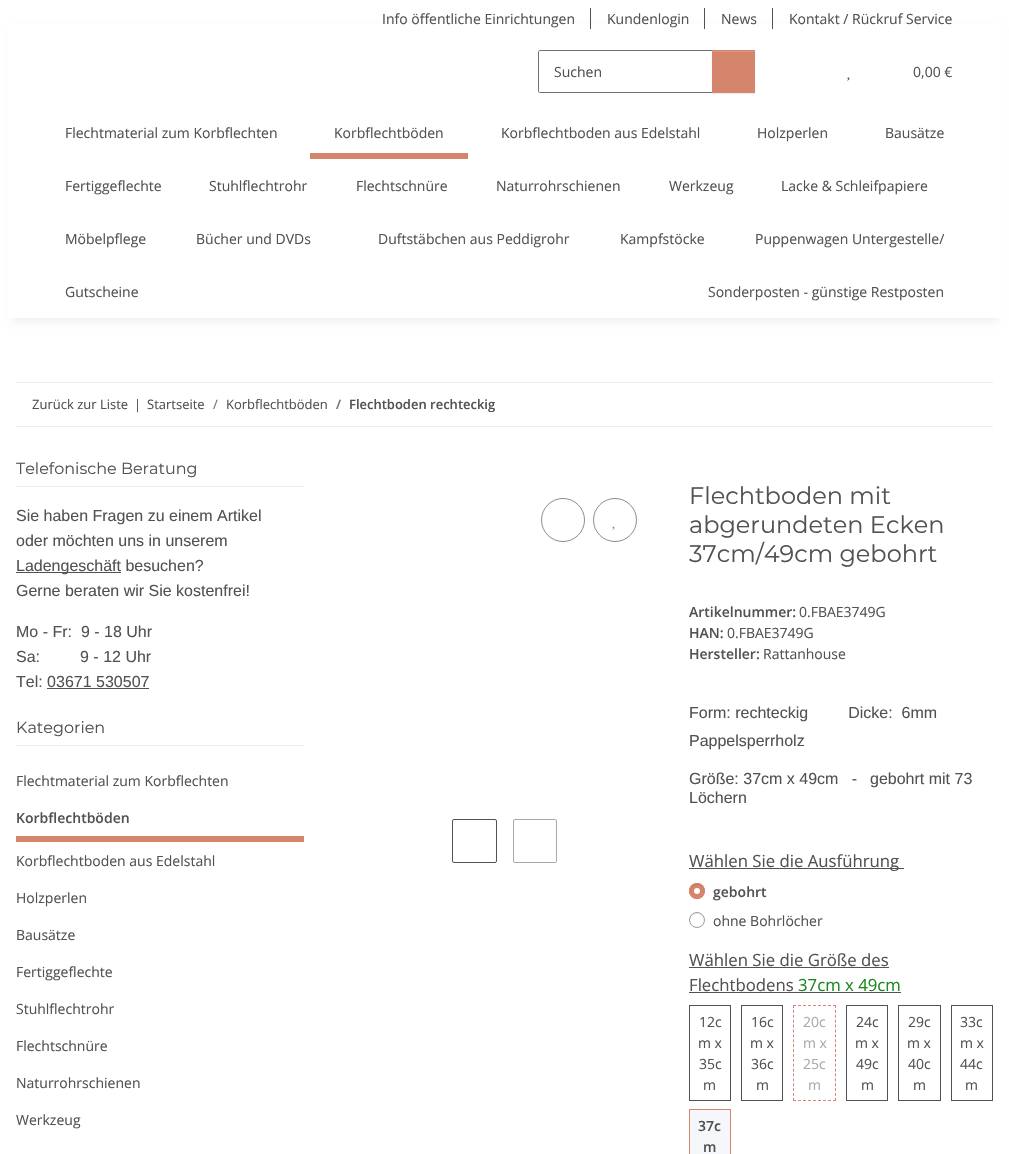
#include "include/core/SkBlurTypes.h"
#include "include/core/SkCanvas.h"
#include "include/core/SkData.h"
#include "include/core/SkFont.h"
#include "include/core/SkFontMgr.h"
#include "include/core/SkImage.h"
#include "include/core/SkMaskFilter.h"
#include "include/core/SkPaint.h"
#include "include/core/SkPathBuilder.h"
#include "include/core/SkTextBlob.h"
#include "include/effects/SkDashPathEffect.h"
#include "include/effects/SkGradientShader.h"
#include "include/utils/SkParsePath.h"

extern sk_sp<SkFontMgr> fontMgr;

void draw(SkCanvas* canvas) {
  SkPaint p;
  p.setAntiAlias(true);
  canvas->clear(SK_ColorWHITE);
  p.setColor(SkColorSetARGB(15, 0, 0, 0));
  p.setMaskFilter(SkMaskFilter::MakeBlur(kNormal_SkBlurStyle, 4.5f));
  canvas->drawRect(SkRect::MakeLTRB(12, 28, 997, 322), p);
  p.setMaskFilter(nullptr);
  p.setColor(SK_ColorWHITE);
  canvas->drawRect(SkRect::MakeLTRB(8, 24, 1001, 318), p);
  p.setColor(SkColorSetRGB(82, 82, 82));
  canvas->drawRect(SkRect::MakeLTRB(590, 8, 591, 29), p);
  canvas->drawRect(SkRect::MakeLTRB(704, 8, 705, 29), p);
  canvas->drawRect(SkRect::MakeLTRB(772, 8, 773, 29), p);
  p.setStyle(SkPaint::kStroke_Style);
  p.setStrokeWidth(1);
  p.setColor(SkColorSetRGB(112, 112, 112));
  canvas->drawPath(SkPathBuilder().moveTo(540, 50.5f).lineTo(712.5f, 50.5f).lineTo(712.5f, 92.5f).lineTo(540, 92.5f).cubicTo(539, 92.5f, 538.5f, 92, 538.5f, 91).lineTo(538.5f, 52).cubicTo(538.5f, 51, 539, 50.5f, 540, 50.5f).close().detach(), p);
  p.setStyle(SkPaint::kFill_Style);
  p.setColor(SkColorSetARGB(18, 0, 0, 0));
  p.setMaskFilter(SkMaskFilter::MakeBlur(kNormal_SkBlurStyle, 0.5f));
  canvas->drawRect(SkRect::MakeLTRB(712, 51, 755, 94), p);
  p.setMaskFilter(nullptr);
  p.setColor(SkColorSetRGB(212, 133, 107));
  canvas->drawRect(SkRect::MakeLTRB(712, 50, 755, 93), p);
  p.setColor(SkColorSetRGB(218, 151, 129));
  canvas->drawRect(SkRect::MakeLTRB(713, 51, 754, 52), p);
  canvas->drawImageRect(SkImages::DeferredFromEncodedData(SkData::MakeFromFileName("images/1.png")), SkRect::MakeLTRB(847, 77, 850, 81), SkSamplingOptions());
  p.setColor(SkColorSetRGB(212, 133, 107));
  canvas->drawRect(SkRect::MakeLTRB(310, 153, 468, 159), p);
  p.setColor(SkColorSetRGB(235, 235, 235));
  canvas->drawRect(SkRect::MakeLTRB(16, 382, 993, 383), p);
  canvas->drawRect(SkRect::MakeLTRB(16, 426, 993, 427), p);
  canvas->drawRect(SkRect::MakeLTRB(16, 486, 304, 487), p);
  p.setColor(SkColorSetRGB(82, 82, 82));
  canvas->drawRect(SkRect::MakeLTRB(16, 572, 121, 573), p);
  canvas->drawRect(SkRect::MakeLTRB(47, 688, 149, 689), p);
  p.setColor(SkColorSetRGB(235, 235, 235));
  canvas->drawRect(SkRect::MakeLTRB(16, 745, 304, 746), p);
  p.setColor(SkColorSetRGB(212, 133, 107));
  canvas->drawRect(SkRect::MakeLTRB(16, 836, 304, 842), p);
  p.setStyle(SkPaint::kStroke_Style);
  p.setColor(SkColorSetRGB(141, 141, 141));
  canvas->drawCircle(563, 520, 21.5f, p);
  canvas->drawCircle(615, 520, 21.5f, p);
  canvas->drawImageRect(SkImages::DeferredFromEncodedData(SkData::MakeFromFileName("images/2.png")), SkRect::MakeLTRB(612, 526, 615, 530), SkSamplingOptions());
  p.setColor(SkColorSetRGB(82, 82, 82));
  canvas->drawRoundRect(SkRect::MakeLTRB(452.5f, 819.5f, 496.5f, 862.5f), 1.5f, 1.5f, p);
  p.setColor(SkColorSetRGB(169, 169, 169));
  canvas->drawRoundRect(SkRect::MakeLTRB(513.5f, 819.5f, 556.5f, 862.5f), 1.5f, 1.5f, p);
  p.setStyle(SkPaint::kFill_Style);
  p.setColor(SkColorSetRGB(82, 82, 82));
  canvas->drawRect(SkRect::MakeLTRB(689, 868, 904, 869), p);
  p.setColor(SkColorSetRGB(212, 133, 107));
  canvas->drawCircle(697, 891, 8, p);
  p.setColor(SkColorSetRGB(196, 123, 99));
  canvas->drawPath(SkPathBuilder().moveTo(697, 885).cubicTo(702, 885, 704, 889.5f, 703.5f, 893).cubicTo(706.5f, 885, 694, 880, 690.5f, 888.5f).cubicTo(690, 890, 690, 891.5f, 690.5f, 893).cubicTo(690, 889.5f, 692, 885, 697, 885).close().detach(), p);
  p.setStyle(SkPaint::kStroke_Style);
  p.setColor(SkColorSetRGB(212, 133, 107));
  canvas->drawCircle(697, 891, 7.5f, p);
  p.setStyle(SkPaint::kFill_Style);
  p.setColor(SK_ColorWHITE);
  canvas->drawCircle(697, 891, 3, p);
  p.setColor(SkColorSetRGB(236, 236, 236));
  canvas->drawPath(SkPathBuilder().moveTo(697, 914).cubicTo(702, 914, 704, 918.5f, 703.5f, 922).cubicTo(706.5f, 914, 694, 909, 690.5f, 917.5f).cubicTo(690, 919, 690, 920.5f, 690.5f, 922).cubicTo(690, 918.5f, 692, 914, 697, 914).close().detach(), p);
  p.setStyle(SkPaint::kStroke_Style);
  p.setColor(SkColorSetRGB(155, 155, 155));
  canvas->drawCircle(697, 920, 7.5f, p);
  p.setStyle(SkPaint::kFill_Style);
  p.setColor(SkColorSetRGB(82, 82, 82));
  canvas->drawRect(SkRect::MakeLTRB(689, 967, 889, 968), p);
  canvas->drawRect(SkRect::MakeLTRB(689, 992, 901, 993), p);
  p.setStyle(SkPaint::kStroke_Style);
  canvas->drawRect(SkRect::MakeLTRB(689.5f, 1005.5f, 730.5f, 1100.5f), p);
  canvas->drawRect(SkRect::MakeLTRB(741.5f, 1005.5f, 782.5f, 1100.5f), p);
  p.setColor(SkColorSetRGB(220, 128, 128));
  p.setPathEffect(SkDashPathEffect::Make({{3, 2}}, 0));
  canvas->drawPath(SkPathBuilder().moveTo(793, 1005.5f).lineTo(836, 1005.5f).detach(), p);
  p.setPathEffect(nullptr);
  p.setPathEffect(SkDashPathEffect::Make({{3, 1.89f}}, 0));
  canvas->drawPath(SkPathBuilder().moveTo(835.5f, 1005).lineTo(835.5f, 1101).detach(), p);
  p.setPathEffect(nullptr);
  p.setPathEffect(SkDashPathEffect::Make({{3, 2}}, 0));
  canvas->drawPath(SkPathBuilder().moveTo(793, 1100.5f).lineTo(836, 1100.5f).detach(), p);
  p.setPathEffect(nullptr);
  p.setPathEffect(SkDashPathEffect::Make({{3, 1.89f}}, 0));
  canvas->drawPath(SkPathBuilder().moveTo(793.5f, 1005).lineTo(793.5f, 1101).detach(), p);
  p.setPathEffect(nullptr);
  p.setColor(SkColorSetRGB(82, 82, 82));
  canvas->drawRect(SkRect::MakeLTRB(846.5f, 1005.5f, 887.5f, 1100.5f), p);
  canvas->drawRect(SkRect::MakeLTRB(898.5f, 1005.5f, 940.5f, 1100.5f), p);
  canvas->drawRect(SkRect::MakeLTRB(951.5f, 1005.5f, 992.5f, 1100.5f), p);
  p.setStyle(SkPaint::kFill_Style);
  p.setColor(SkColorSetRGB(245, 247, 250));
  canvas->drawRect(SkRect::MakeLTRB(689.5f, 1109.5f, 730.5f, 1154.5f), p);
  p.setStyle(SkPaint::kStroke_Style);
  p.setColor(SkColorSetRGB(212, 133, 107));
  canvas->drawRect(SkRect::MakeLTRB(689.5f, 1109.5f, 730.5f, 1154.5f), p);
  SkFont font1(fontMgr->matchFamilyStyle("Open Sans", SkFontStyle::Normal()), 14);
  font1.setSubpixel(true);
  p.setStyle(SkPaint::kFill_Style);
  p.setColor(SkColorSetRGB(82, 82, 82));
  canvas->drawString("Info öffentliche Einrichtungen", 382, 24, font1, p);
  canvas->drawString("Kundenlogin", 607, 24, font1, p);
  canvas->drawString("News", 721, 24, font1, p);
  canvas->drawString("Kontakt / Rückruf Service", 789, 24, font1, p);
  canvas->drawString("Suchen", 554, 77, font1, p);
  canvas->drawString("0,00 €", 913, 77, font1, p);
  canvas->drawString("Flechtmaterial zum Korbflechten", 65, 138, font1, p);
  canvas->drawString("Korbflechtböden", 334, 138, font1, p);
  canvas->drawString("Korbflechtboden aus Edelstahl", 501, 138, font1, p);
  canvas->drawString("Holzperlen", 757, 138, font1, p);
  canvas->drawString("Bausätze", 885, 138, font1, p);
  canvas->drawString("Fertiggeflechte", 65, 191, font1, p);
  canvas->drawString("Stuhlflechtrohr", 209, 191, font1, p);
  canvas->drawString("Flechtschnüre", 356, 191, font1, p);
  canvas->drawString("Naturrohrschienen", 496, 191, font1, p);
  canvas->drawString("Werkzeug", 669, 191, font1, p);
  canvas->drawString("Lacke & Schleifpapiere", 781, 191, font1, p);
  canvas->drawString("Möbelpflege", 65, 244, font1, p);
  canvas->drawString("Bücher und DVDs", 196, 244, font1, p);
  canvas->drawString("Duftstäbchen aus Peddigrohr", 378, 244, font1, p);
  canvas->drawString("Kampfstöcke", 620, 244, font1, p);
  canvas->drawString("Puppenwagen Untergestelle/", 755, 244, font1, p);
  canvas->drawString("Gutscheine", 65, 297, font1, p);
  canvas->drawString("Sonderposten - günstige Restposten", 708, 297, font1, p);
  SkFont font2(fontMgr->matchFamilyStyle("Open Sans", SkFontStyle::Normal()), 13);
  font2.setSubpixel(true);
  canvas->drawString("Zurück zur Liste", 32, 409, font2, p);
  canvas->drawString("|", 134, 409, font2, p);
  canvas->drawString("Startseite", 147, 409, font2, p);
  p.setColor(SkColorSetRGB(112, 112, 112));
  canvas->drawString("/", 213, 409, font2, p);
  p.setColor(SkColorSetRGB(82, 82, 82));
  canvas->drawString("Korbflechtböden", 226, 409, font2, p);
  SkFont font3(fontMgr->matchFamilyStyle("Open Sans", SkFontStyle(600, SkFontStyle::kNormal_Width, SkFontStyle::kUpright_Slant)), 13);
  font3.setSubpixel(true);
  p.setColor(SkColorSetRGB(112, 112, 112));
  canvas->drawString("/", 336, 409, font3, p);
  p.setColor(SkColorSetRGB(82, 82, 82));
  canvas->drawString("Flechtboden rechteckig", 349, 409, font3, p);
  SkFont font4(fontMgr->matchFamilyStyle("Montserrat", SkFontStyle::Normal()), 16);
  font4.setSubpixel(true);
  canvas->drawString("Telefonische Beratung", 16, 474, font4, p);
  SkFont font5(fontMgr->matchFamilyStyle("Liberation Sans", SkFontStyle::Normal()), 16);
  font5.setSubpixel(true);
  canvas->drawString("Sie haben Fragen zu einem Artikel", 16, 521, font5, p);
  canvas->drawString("oder möchten uns in unserem", 16, 546, font5, p);
  canvas->drawString("Ladengeschäft besuchen?", 16, 571, font5, p);
  canvas->drawString("Gerne beraten wir Sie kostenfrei!", 16, 596, font5, p);
  canvas->drawString("Mo - Fr:  9 - 18 Uhr", 16, 637, font5, p);
  canvas->drawString("Sa:         9 - 12 Uhr", 16, 662, font5, p);
  canvas->drawString("Tel: 03671 530507", 16, 687, font5, p);
  canvas->drawString("Kategorien", 16, 733, font4, p);
  canvas->drawString("Flechtmaterial zum Korbflechten", 16, 786, font1, p);
  SkFont font6(fontMgr->matchFamilyStyle("Open Sans", SkFontStyle(600, SkFontStyle::kNormal_Width, SkFontStyle::kUpright_Slant)), 14);
  font6.setSubpixel(true);
  canvas->drawString("Korbflechtböden", 16, 823, font6, p);
  canvas->drawString("Korbflechtboden aus Edelstahl", 16, 866, font1, p);
  canvas->drawString("Holzperlen", 16, 903, font1, p);
  canvas->drawString("Bausätze", 16, 940, font1, p);
  canvas->drawString("Fertiggeflechte", 16, 977, font1, p);
  canvas->drawString("Stuhlflechtrohr", 16, 1014, font1, p);
  canvas->drawString("Flechtschnüre", 16, 1051, font1, p);
  canvas->drawString("Naturrohrschienen", 16, 1088, font1, p);
  canvas->drawString("Werkzeug", 16, 1125, font1, p);
  SkFont font7(fontMgr->matchFamilyStyle("Montserrat", SkFontStyle::Normal()), 24);
  font7.setSubpixel(true);
  canvas->drawString("Flechtboden mit", 689, 504, font7, p);
  canvas->drawString("abgerundeten Ecken", 689, 533, font7, p);
  canvas->drawString("37cm/49cm gebohrt", 689, 562, font7, p);
  canvas->drawString("Artikelnummer:", 689, 617, font6, p);
  canvas->drawString("0.FBAE3749G", 799, 617, font1, p);
  canvas->drawString("HAN:", 689, 638, font6, p);
  canvas->drawString("0.FBAE3749G", 727, 638, font1, p);
  canvas->drawString("Hersteller:", 689, 659, font6, p);
  canvas->drawString("Rattanhouse", 763, 659, font1, p);
  canvas->drawString("Form: rechteckig         Dicke:  6mm", 689, 718, font5, p);
  canvas->drawString("Pappelsperrholz", 689, 746, font5, p);
  canvas->drawString("Größe: 37cm x 49cm   -", 689, 784, font5, p);
  canvas->drawString("gebohrt mit 73", 870, 784, font5, p);
  canvas->drawString("Löchern", 689, 803, font5, p);
  SkFont font8(fontMgr->matchFamilyStyle("Open Sans", SkFontStyle::Normal()), 16.75f);
  font8.setSubpixel(true);
  canvas->drawString("Wählen Sie die Ausführung", 689, 867, font8, p);
  canvas->drawString("gebohrt", 713, 897, font6, p);
  canvas->drawString("ohne Bohrlöcher", 713, 926, font1, p);
  canvas->drawString("Wählen Sie die Größe des", 689, 966, font8, p);
  canvas->drawString("Flechtbodens", 689, 991, font8, p);
  p.setColor(SkColorSetRGB(28, 135, 30));
  canvas->drawString("37cm x 49cm", 798, 991, font8, p);
  p.setColor(SkColorSetRGB(82, 82, 82));
  canvas->drawString("12c", 699, 1027, font1, p);
  canvas->drawString("m x", 698, 1048, font1, p);
  canvas->drawString("35c", 699, 1069, font1, p);
  canvas->drawString("m", 703, 1090, font1, p);
  canvas->drawString("16c", 751, 1027, font1, p);
  canvas->drawString("m x", 750, 1048, font1, p);
  canvas->drawString("36c", 751, 1069, font1, p);
  canvas->drawString("m", 756, 1090, font1, p);
  p.setColor(SkColorSetRGB(169, 169, 169));
  canvas->drawString("20c", 803, 1027, font1, p);
  canvas->drawString("m x", 803, 1048, font1, p);
  canvas->drawString("25c", 803, 1069, font1, p);
  canvas->drawString("m", 808, 1090, font1, p);
  p.setColor(SkColorSetRGB(82, 82, 82));
  canvas->drawString("24c", 856, 1027, font1, p);
  canvas->drawString("m x", 855, 1048, font1, p);
  canvas->drawString("49c", 856, 1069, font1, p);
  canvas->drawString("m", 861, 1090, font1, p);
  canvas->drawString("29c", 908, 1027, font1, p);
  canvas->drawString("m x", 907, 1048, font1, p);
  canvas->drawString("40c", 908, 1069, font1, p);
  canvas->drawString("m", 913, 1090, font1, p);
  canvas->drawString("33c", 960, 1027, font1, p);
  canvas->drawString("m x", 960, 1048, font1, p);
  canvas->drawString("44c", 960, 1069, font1, p);
  canvas->drawString("m", 965, 1090, font1, p);
  canvas->drawString("37c", 698, 1131, font6, p);
  canvas->drawString("m", 703, 1152, font6, p);
}
